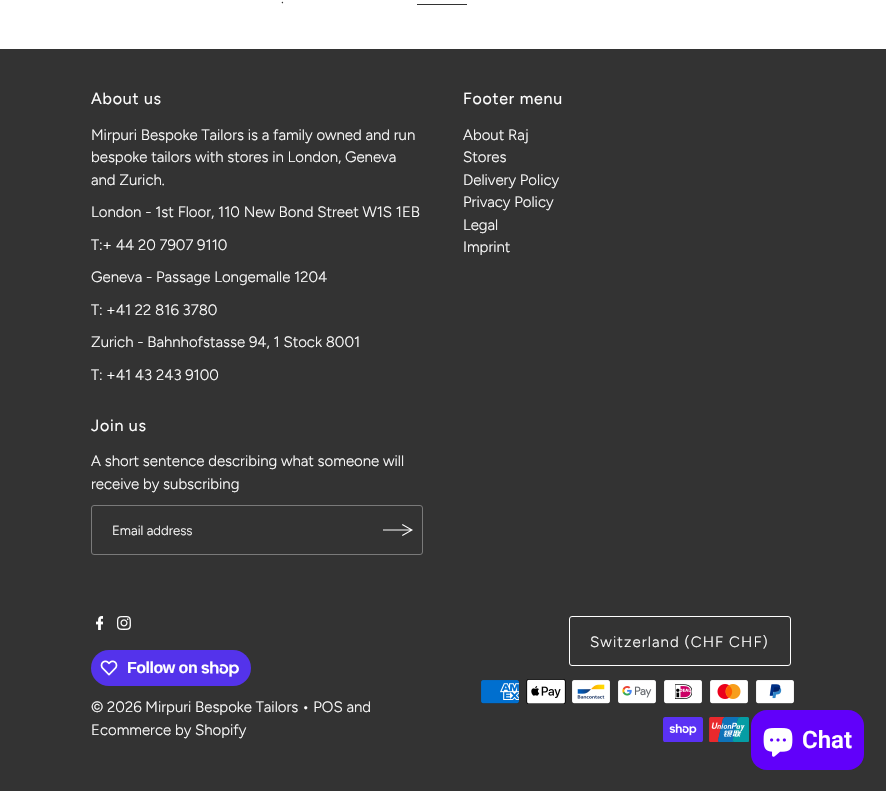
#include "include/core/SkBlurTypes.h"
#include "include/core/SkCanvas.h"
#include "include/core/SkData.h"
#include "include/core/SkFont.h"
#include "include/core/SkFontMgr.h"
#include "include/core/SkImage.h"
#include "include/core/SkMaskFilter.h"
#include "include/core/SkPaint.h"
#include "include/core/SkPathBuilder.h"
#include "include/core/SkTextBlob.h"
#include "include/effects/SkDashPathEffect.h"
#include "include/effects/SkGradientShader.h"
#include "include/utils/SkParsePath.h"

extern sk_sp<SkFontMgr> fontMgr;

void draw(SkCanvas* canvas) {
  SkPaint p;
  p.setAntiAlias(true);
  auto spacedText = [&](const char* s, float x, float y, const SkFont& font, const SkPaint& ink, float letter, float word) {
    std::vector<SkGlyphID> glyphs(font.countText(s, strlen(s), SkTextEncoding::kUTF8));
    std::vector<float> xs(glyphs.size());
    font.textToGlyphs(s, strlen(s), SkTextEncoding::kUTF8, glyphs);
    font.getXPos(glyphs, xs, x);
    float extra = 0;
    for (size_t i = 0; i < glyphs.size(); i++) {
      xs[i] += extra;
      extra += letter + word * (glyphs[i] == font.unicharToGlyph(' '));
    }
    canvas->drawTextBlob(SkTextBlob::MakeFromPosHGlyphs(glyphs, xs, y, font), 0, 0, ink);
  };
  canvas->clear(SK_ColorWHITE);
  p.setColor(SkColorSetRGB(51, 51, 51));
  canvas->drawRect(SkRect::MakeLTRB(417, 4, 467, 5), p);
  canvas->drawRect(SkRect::MakeLTRB(0, 49, 886, 791), p);
  p.setStyle(SkPaint::kStroke_Style);
  p.setStrokeWidth(1);
  p.setColor(SkColorSetRGB(122, 122, 122));
  canvas->drawRoundRect(SkRect::MakeLTRB(91.5f, 505.5f, 422.5f, 554.5f), 2.5f, 2.5f, p);
  p.setStyle(SkPaint::kFill_Style);
  p.setColor(SK_ColorWHITE);
  canvas->drawPath(SkPathBuilder().moveTo(402.5f, 524).lineTo(413, 530).lineTo(402.5f, 536).lineTo(402, 535).lineTo(410, 530.5f).lineTo(383, 530.5f).lineTo(383, 529.5f).lineTo(410, 529.5f).lineTo(402, 525).close().detach(), p);
  p.setStyle(SkPaint::kStroke_Style);
  canvas->drawRoundRect(SkRect::MakeLTRB(569.5f, 616.5f, 790.5f, 665.5f), 2.5f, 2.5f, p);
  canvas->drawImageRect(SkImages::DeferredFromEncodedData(SkData::MakeFromFileName("images/1.png")), SkRect::MakeLTRB(481, 680, 519, 704), SkSamplingOptions());
  canvas->drawImageRect(SkImages::DeferredFromEncodedData(SkData::MakeFromFileName("images/2.png")), SkRect::MakeLTRB(526, 679, 566, 704), SkSamplingOptions());
  canvas->drawImageRect(SkImages::DeferredFromEncodedData(SkData::MakeFromFileName("images/3.png")), SkRect::MakeLTRB(572, 680, 610, 704), SkSamplingOptions());
  canvas->drawImageRect(SkImages::DeferredFromEncodedData(SkData::MakeFromFileName("images/4.png")), SkRect::MakeLTRB(618, 680, 656, 704), SkSamplingOptions());
  canvas->drawImageRect(SkImages::DeferredFromEncodedData(SkData::MakeFromFileName("images/5.png")), SkRect::MakeLTRB(664, 680, 702, 704), SkSamplingOptions());
  canvas->drawImageRect(SkImages::DeferredFromEncodedData(SkData::MakeFromFileName("images/6.png")), SkRect::MakeLTRB(710, 680, 748, 704), SkSamplingOptions());
  canvas->drawImageRect(SkImages::DeferredFromEncodedData(SkData::MakeFromFileName("images/7.png")), SkRect::MakeLTRB(756, 680, 794, 704), SkSamplingOptions());
  canvas->drawImageRect(SkImages::DeferredFromEncodedData(SkData::MakeFromFileName("images/8.png")), SkRect::MakeLTRB(663, 717, 703, 742), SkSamplingOptions());
  canvas->drawImageRect(SkImages::DeferredFromEncodedData(SkData::MakeFromFileName("images/9.png")), SkRect::MakeLTRB(709, 717, 749, 742), SkSamplingOptions());
  canvas->drawImageRect(SkImages::DeferredFromEncodedData(SkData::MakeFromFileName("images/10.png")), SkRect::MakeLTRB(96, 616, 103, 630), SkSamplingOptions());
  canvas->drawImageRect(SkImages::DeferredFromEncodedData(SkData::MakeFromFileName("images/11.png")), SkRect::MakeLTRB(117, 616, 131, 630), SkSamplingOptions());
  p.setStyle(SkPaint::kFill_Style);
  p.setColor(SkColorSetRGB(84, 51, 235));
  canvas->drawRoundRect(SkRect::MakeLTRB(91, 650, 251, 686), 18, 18, p);
  canvas->drawImageRect(SkImages::DeferredFromEncodedData(SkData::MakeFromFileName("images/12.png")), SkRect::MakeLTRB(100, 660, 118, 676), SkSamplingOptions());
  canvas->drawImageRect(SkImages::DeferredFromEncodedData(SkData::MakeFromFileName("images/13.png")), SkRect::MakeLTRB(201, 661, 239, 677), SkSamplingOptions());
  p.setColor(SkColorSetRGB(97, 0, 250));
  canvas->drawRoundRect(SkRect::MakeLTRB(751, 710, 864, 770), 16, 16, p);
  canvas->drawImageRect(SkImages::DeferredFromEncodedData(SkData::MakeFromFileName("images/14.png")), SkRect::MakeLTRB(763, 728, 793, 757), SkSamplingOptions());
  SkFont font1(fontMgr->matchFamilyStyle("Figtree", SkFontStyle(300, SkFontStyle::kNormal_Width, SkFontStyle::kUpright_Slant)), 15);
  font1.setSubpixel(true);
  p.setColor(SkColorSetRGB(51, 51, 51));
  canvas->drawString(".", 281, 3, font1, p);
  SkFont font2(fontMgr->matchFamilyStyle("Figtree", SkFontStyle::Normal()), 16);
  font2.setSubpixel(true);
  p.setColor(SK_ColorWHITE);
  spacedText("About us", 91, 104, font2, p, 0.75f, 0);
  canvas->drawString("Mirpuri Bespoke Tailors is a family owned and run", 91, 140, font1, p);
  canvas->drawString("bespoke tailors with stores in London, Geneva", 91, 162, font1, p);
  canvas->drawString("and Zurich.", 91, 185, font1, p);
  canvas->drawString("London - 1st Floor, 110 New Bond Street W1S 1EB", 91, 217, font1, p);
  canvas->drawString("T:+ 44 20 7907 9110", 91, 250, font1, p);
  canvas->drawString("Geneva - Passage Longemalle 1204", 91, 282, font1, p);
  canvas->drawString("T: +41 22 816 3780", 91, 315, font1, p);
  canvas->drawString("Zurich - Bahnhofstasse 94, 1 Stock 8001", 91, 347, font1, p);
  canvas->drawString("T: +41 43 243 9100", 91, 380, font1, p);
  spacedText("Footer menu", 463, 104, font2, p, 0.75f, 0);
  canvas->drawString("About Raj", 463, 140, font1, p);
  canvas->drawString("Stores", 463, 162, font1, p);
  canvas->drawString("Delivery Policy", 463, 185, font1, p);
  canvas->drawString("Privacy Policy", 463, 207, font1, p);
  canvas->drawString("Legal", 463, 230, font1, p);
  canvas->drawString("Imprint", 463, 252, font1, p);
  spacedText("Join us", 91, 431, font2, p, 0.75f, 0);
  canvas->drawString("A short sentence describing what someone will", 91, 466, font1, p);
  canvas->drawString("receive by subscribing", 91, 489, font1, p);
  SkFont font3(fontMgr->matchFamilyStyle("Figtree", SkFontStyle(300, SkFontStyle::kNormal_Width, SkFontStyle::kUpright_Slant)), 13.25f);
  font3.setSubpixel(true);
  canvas->drawString("Email address", 112, 535, font3, p);
  spacedText("Switzerland (CHF CHF)", 590, 647, font1, p, 1.1f, 0);
  SkFont font4(fontMgr->matchFamilyStyle("Liberation Sans", SkFontStyle::Bold()), 16);
  font4.setSubpixel(true);
  spacedText("Follow on", 127, 673, font4, p, -0.5f, 0);
  canvas->drawString("© 2026 Mirpuri Bespoke Tailors • POS and", 91, 712, font1, p);
  canvas->drawString("Ecommerce by Shopify", 91, 735, font1, p);
  SkFont font5(fontMgr->matchFamilyStyle("Roboto", SkFontStyle(600, SkFontStyle::kNormal_Width, SkFontStyle::kUpright_Slant)), 24);
  font5.setSubpixel(true);
  canvas->drawString("Chat", 802, 748, font5, p);
}
